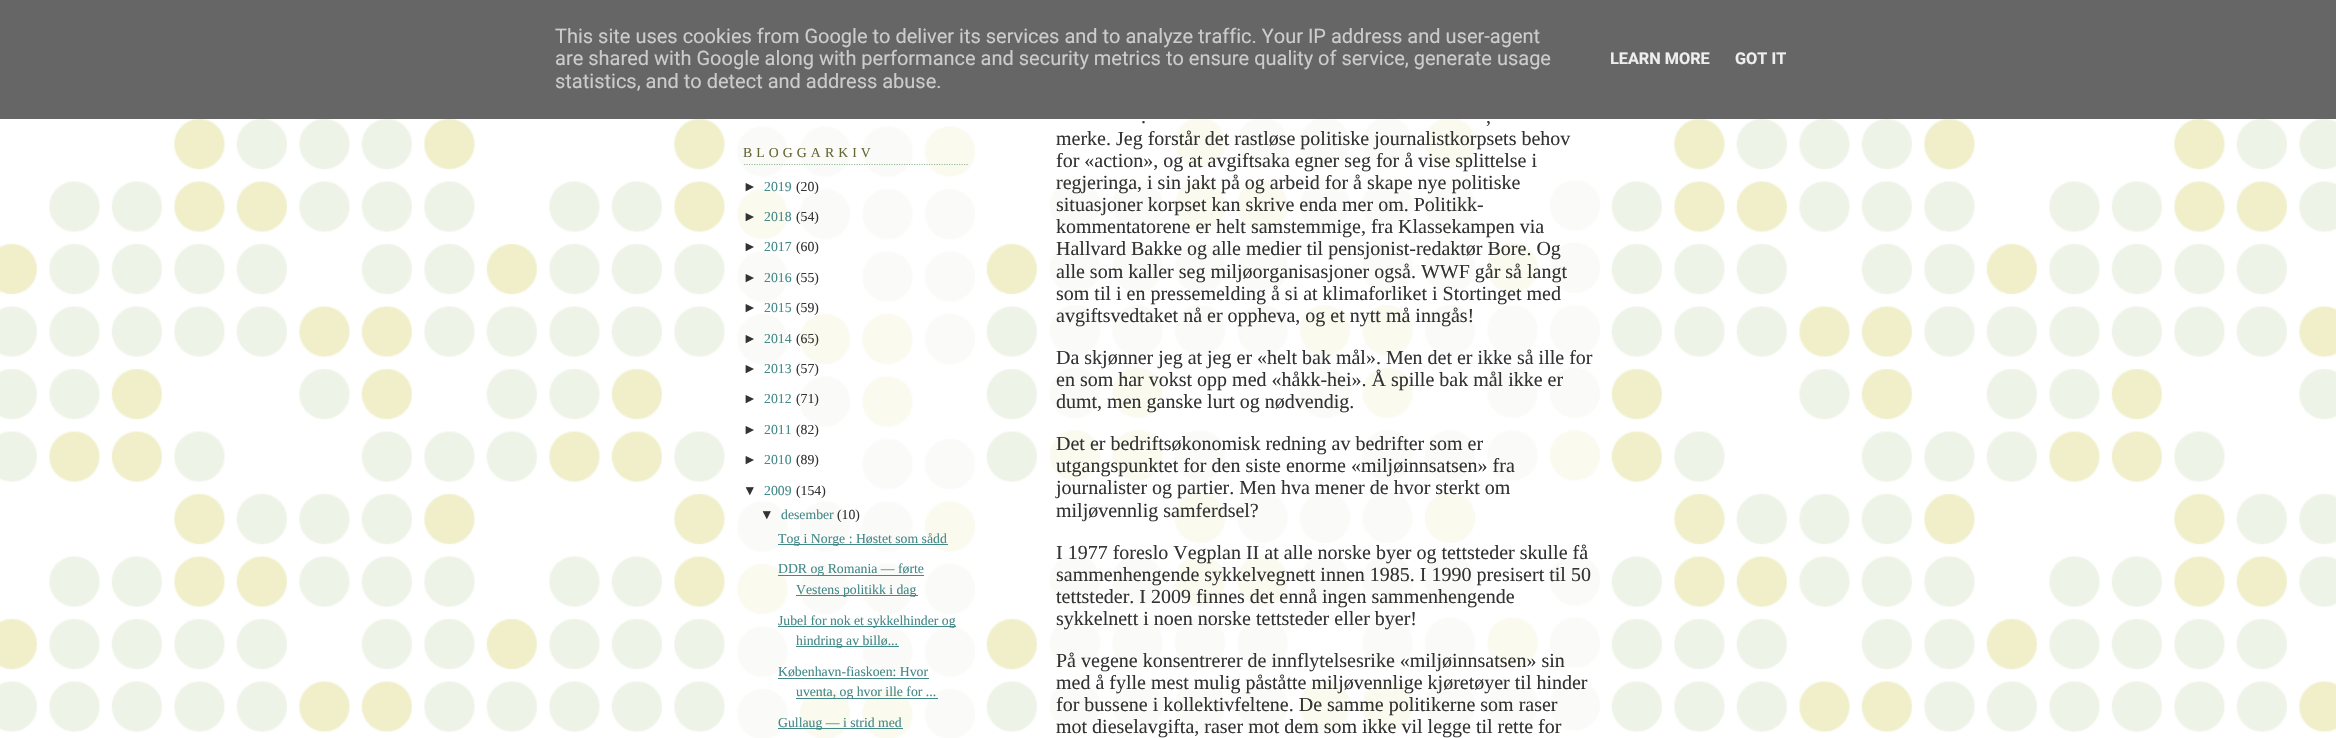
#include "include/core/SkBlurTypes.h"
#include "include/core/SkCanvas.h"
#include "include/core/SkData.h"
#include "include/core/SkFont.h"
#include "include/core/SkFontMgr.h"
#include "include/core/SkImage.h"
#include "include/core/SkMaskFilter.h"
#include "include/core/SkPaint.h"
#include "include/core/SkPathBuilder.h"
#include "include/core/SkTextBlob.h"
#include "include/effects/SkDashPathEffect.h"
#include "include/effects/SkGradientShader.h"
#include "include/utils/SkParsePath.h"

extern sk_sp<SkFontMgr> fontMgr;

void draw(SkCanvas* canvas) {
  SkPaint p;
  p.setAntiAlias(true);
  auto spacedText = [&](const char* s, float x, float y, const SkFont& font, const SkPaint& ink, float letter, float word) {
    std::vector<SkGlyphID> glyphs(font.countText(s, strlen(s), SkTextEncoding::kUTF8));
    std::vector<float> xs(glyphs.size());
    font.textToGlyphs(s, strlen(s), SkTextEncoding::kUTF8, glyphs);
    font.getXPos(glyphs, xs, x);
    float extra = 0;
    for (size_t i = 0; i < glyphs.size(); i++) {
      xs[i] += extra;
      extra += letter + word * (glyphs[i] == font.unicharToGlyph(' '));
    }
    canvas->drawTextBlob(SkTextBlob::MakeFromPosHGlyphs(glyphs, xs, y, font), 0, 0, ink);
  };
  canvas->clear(SK_ColorWHITE);
  canvas->drawImageRect(SkImages::DeferredFromEncodedData(SkData::MakeFromFileName("images/1.png")), SkRect::MakeLTRB(0, 119, 2336, 732), SkSamplingOptions());
  p.setColor(SkColorSetRGB(102, 102, 102));
  canvas->drawRect(SkRect::MakeLTRB(0, 0, 2336, 119), p);
  canvas->drawImageRect(SkImages::DeferredFromEncodedData(SkData::MakeFromFileName("images/2.png")), SkRect::MakeLTRB(736, 119, 975, 738), SkSamplingOptions());
  p.setStyle(SkPaint::kStroke_Style);
  p.setStrokeWidth(1.2f);
  p.setColor(SkColorSetRGB(153, 187, 153));
  p.setPathEffect(SkDashPathEffect::Make({{1.25f, 1.25f}}, 0));
  canvas->drawPath(SkPathBuilder().moveTo(744, 164.5f).lineTo(969, 164.5f).detach(), p);
  p.setPathEffect(nullptr);
  p.setStyle(SkPaint::kFill_Style);
  p.setColor(SkColorSetRGB(68, 136, 136));
  canvas->drawRect(SkRect::MakeLTRB(778, 544, 948, 545), p);
  canvas->drawRect(SkRect::MakeLTRB(778, 575, 924, 576), p);
  canvas->drawRect(SkRect::MakeLTRB(796, 595, 918, 596), p);
  canvas->drawRect(SkRect::MakeLTRB(778, 626, 956, 627), p);
  canvas->drawRect(SkRect::MakeLTRB(796, 646, 899, 647), p);
  canvas->drawRect(SkRect::MakeLTRB(778, 678, 929, 679), p);
  canvas->drawRect(SkRect::MakeLTRB(796, 698, 938, 699), p);
  canvas->drawRect(SkRect::MakeLTRB(778, 728, 903, 729), p);
  canvas->drawImageRect(SkImages::DeferredFromEncodedData(SkData::MakeFromFileName("images/3.png")), SkRect::MakeLTRB(1049, 119, 1600, 732), SkSamplingOptions());
  SkFont font1(fontMgr->matchFamilyStyle("Roboto", SkFontStyle::Normal()), 20);
  font1.setSubpixel(true);
  p.setColor(SkColorSetRGB(204, 204, 204));
  canvas->drawString("This site uses cookies from Google to deliver its services and to analyze traffic. Your IP address and user-agent", 555, 43, font1, p);
  canvas->drawString("are shared with Google along with performance and security metrics to ensure quality of service, generate usage", 555, 65, font1, p);
  canvas->drawString("statistics, and to detect and address abuse.", 555, 88, font1, p);
  SkFont font2(fontMgr->matchFamilyStyle("Roboto", SkFontStyle::Bold()), 16.25f);
  font2.setSubpixel(true);
  p.setColor(SkColorSetRGB(238, 238, 238));
  canvas->drawString("LEARN MORE", 1610, 64, font2, p);
  canvas->drawString("GOT IT", 1735, 64, font2, p);
  SkFont font3(fontMgr->matchFamilyStyle("Liberation Serif", SkFontStyle::Normal()), 13.75f);
  font3.setSubpixel(true);
  p.setColor(SkColorSetRGB(102, 102, 51));
  spacedText("BLOGGARKIV", 743, 157, font3, p, 4.1f, 0);
  SkFont font4(fontMgr->matchFamilyStyle("Liberation Sans", SkFontStyle::Normal()), 13.75f);
  font4.setSubpixel(true);
  p.setColor(SkColorSetRGB(51, 51, 51));
  canvas->drawString("►", 743, 191, font4, p);
  p.setColor(SkColorSetRGB(68, 136, 136));
  canvas->drawString("2019", 764, 191, font3, p);
  p.setColor(SkColorSetRGB(51, 51, 51));
  canvas->drawString("(20)", 796, 191, font3, p);
  canvas->drawString("►", 743, 221, font4, p);
  p.setColor(SkColorSetRGB(68, 136, 136));
  canvas->drawString("2018", 764, 221, font3, p);
  p.setColor(SkColorSetRGB(51, 51, 51));
  canvas->drawString("(54)", 796, 221, font3, p);
  canvas->drawString("►", 743, 251, font4, p);
  p.setColor(SkColorSetRGB(68, 136, 136));
  canvas->drawString("2017", 764, 251, font3, p);
  p.setColor(SkColorSetRGB(51, 51, 51));
  canvas->drawString("(60)", 796, 251, font3, p);
  canvas->drawString("►", 743, 282, font4, p);
  p.setColor(SkColorSetRGB(68, 136, 136));
  canvas->drawString("2016", 764, 282, font3, p);
  p.setColor(SkColorSetRGB(51, 51, 51));
  canvas->drawString("(55)", 796, 282, font3, p);
  canvas->drawString("►", 743, 312, font4, p);
  p.setColor(SkColorSetRGB(68, 136, 136));
  canvas->drawString("2015", 764, 312, font3, p);
  p.setColor(SkColorSetRGB(51, 51, 51));
  canvas->drawString("(59)", 796, 312, font3, p);
  canvas->drawString("►", 743, 343, font4, p);
  p.setColor(SkColorSetRGB(68, 136, 136));
  canvas->drawString("2014", 764, 343, font3, p);
  p.setColor(SkColorSetRGB(51, 51, 51));
  canvas->drawString("(65)", 796, 343, font3, p);
  canvas->drawString("►", 743, 373, font4, p);
  p.setColor(SkColorSetRGB(68, 136, 136));
  canvas->drawString("2013", 764, 373, font3, p);
  p.setColor(SkColorSetRGB(51, 51, 51));
  canvas->drawString("(57)", 796, 373, font3, p);
  canvas->drawString("►", 743, 403, font4, p);
  p.setColor(SkColorSetRGB(68, 136, 136));
  canvas->drawString("2012", 764, 403, font3, p);
  p.setColor(SkColorSetRGB(51, 51, 51));
  canvas->drawString("(71)", 796, 403, font3, p);
  canvas->drawString("►", 743, 434, font4, p);
  p.setColor(SkColorSetRGB(68, 136, 136));
  canvas->drawString("2011", 764, 434, font3, p);
  p.setColor(SkColorSetRGB(51, 51, 51));
  canvas->drawString("(82)", 796, 434, font3, p);
  canvas->drawString("►", 743, 464, font4, p);
  p.setColor(SkColorSetRGB(68, 136, 136));
  canvas->drawString("2010", 764, 464, font3, p);
  p.setColor(SkColorSetRGB(51, 51, 51));
  canvas->drawString("(89)", 796, 464, font3, p);
  canvas->drawString("▼", 743, 495, font4, p);
  p.setColor(SkColorSetRGB(68, 136, 136));
  canvas->drawString("2009", 764, 495, font3, p);
  p.setColor(SkColorSetRGB(51, 51, 51));
  canvas->drawString("(154)", 796, 495, font3, p);
  canvas->drawString("▼", 760, 519, font4, p);
  p.setColor(SkColorSetRGB(68, 136, 136));
  canvas->drawString("desember", 781, 519, font3, p);
  p.setColor(SkColorSetRGB(51, 51, 51));
  canvas->drawString("(10)", 837, 519, font3, p);
  p.setColor(SkColorSetRGB(68, 136, 136));
  canvas->drawString("Tog i Norge : Høstet som sådd", 778, 543, font3, p);
  canvas->drawString("DDR og Romania — førte", 778, 573, font3, p);
  canvas->drawString("Vestens politikk i dag", 796, 594, font3, p);
  canvas->drawString("Jubel for nok et sykkelhinder og", 778, 625, font3, p);
  canvas->drawString("hindring av billø...", 796, 645, font3, p);
  canvas->drawString("København-fiaskoen: Hvor", 778, 676, font3, p);
  canvas->drawString("uventa, og hvor ille for ...", 796, 696, font3, p);
  canvas->drawString("Gullaug — i strid med", 778, 727, font3, p);
  SkFont font5(fontMgr->matchFamilyStyle("Liberation Serif", SkFontStyle::Normal()), 20);
  font5.setSubpixel(true);
  p.setColor(SkColorSetRGB(51, 51, 51));
  canvas->drawString(".", 1141, 123, font5, p);
  canvas->drawString(",", 1486, 123, font5, p);
  canvas->drawString("merke. Jeg forstår det rastløse politiske journalistkorpsets behov", 1056, 145, font5, p);
  canvas->drawString("for «action», og at avgiftsaka egner seg for å vise splittelse i", 1056, 167, font5, p);
  canvas->drawString("regjeringa, i sin jakt på og arbeid for å skape nye politiske", 1056, 189, font5, p);
  canvas->drawString("situasjoner korpset kan skrive enda mer om. Politikk-", 1056, 211, font5, p);
  canvas->drawString("kommentatorene er helt samstemmige, fra Klassekampen via", 1056, 233, font5, p);
  canvas->drawString("Hallvard Bakke og alle medier til pensjonist-redaktør Bore. Og", 1056, 255, font5, p);
  canvas->drawString("alle som kaller seg miljøorganisasjoner også. WWF går så langt", 1056, 278, font5, p);
  canvas->drawString("som til i en pressemelding å si at klimaforliket i Stortinget med", 1056, 300, font5, p);
  canvas->drawString("avgiftsvedtaket nå er oppheva, og et nytt må inngås!", 1056, 322, font5, p);
  canvas->drawString("Da skjønner jeg at jeg er «helt bak mål». Men det er ikke så ille for", 1056, 364, font5, p);
  canvas->drawString("en som har vokst opp med «håkk-hei». Å spille bak mål ikke er", 1056, 386, font5, p);
  canvas->drawString("dumt, men ganske lurt og nødvendig.", 1056, 408, font5, p);
  canvas->drawString("Det er bedriftsøkonomisk redning av bedrifter som er", 1056, 450, font5, p);
  canvas->drawString("utgangspunktet for den siste enorme «miljøinnsatsen» fra", 1056, 472, font5, p);
  canvas->drawString("journalister og partier. Men hva mener de hvor sterkt om", 1056, 494, font5, p);
  canvas->drawString("miljøvennlig samferdsel?", 1056, 517, font5, p);
  canvas->drawString("I 1977 foreslo Vegplan II at alle norske byer og tettsteder skulle få", 1056, 559, font5, p);
  canvas->drawString("sammenhengende sykkelvegnett innen 1985. I 1990 presisert til 50", 1056, 581, font5, p);
  canvas->drawString("tettsteder. I 2009 finnes det ennå ingen sammenhengende", 1056, 603, font5, p);
  canvas->drawString("sykkelnett i noen norske tettsteder eller byer!", 1056, 625, font5, p);
  canvas->drawString("På vegene konsentrerer de innflytelsesrike «miljøinnsatsen» sin", 1056, 667, font5, p);
  canvas->drawString("med å fylle mest mulig påståtte miljøvennlige kjøretøyer til hinder", 1056, 689, font5, p);
  canvas->drawString("for bussene i kollektivfeltene. De samme politikerne som raser", 1056, 711, font5, p);
  canvas->drawString("mot dieselavgifta, raser mot dem som ikke vil legge til rette for", 1056, 733, font5, p);
}
